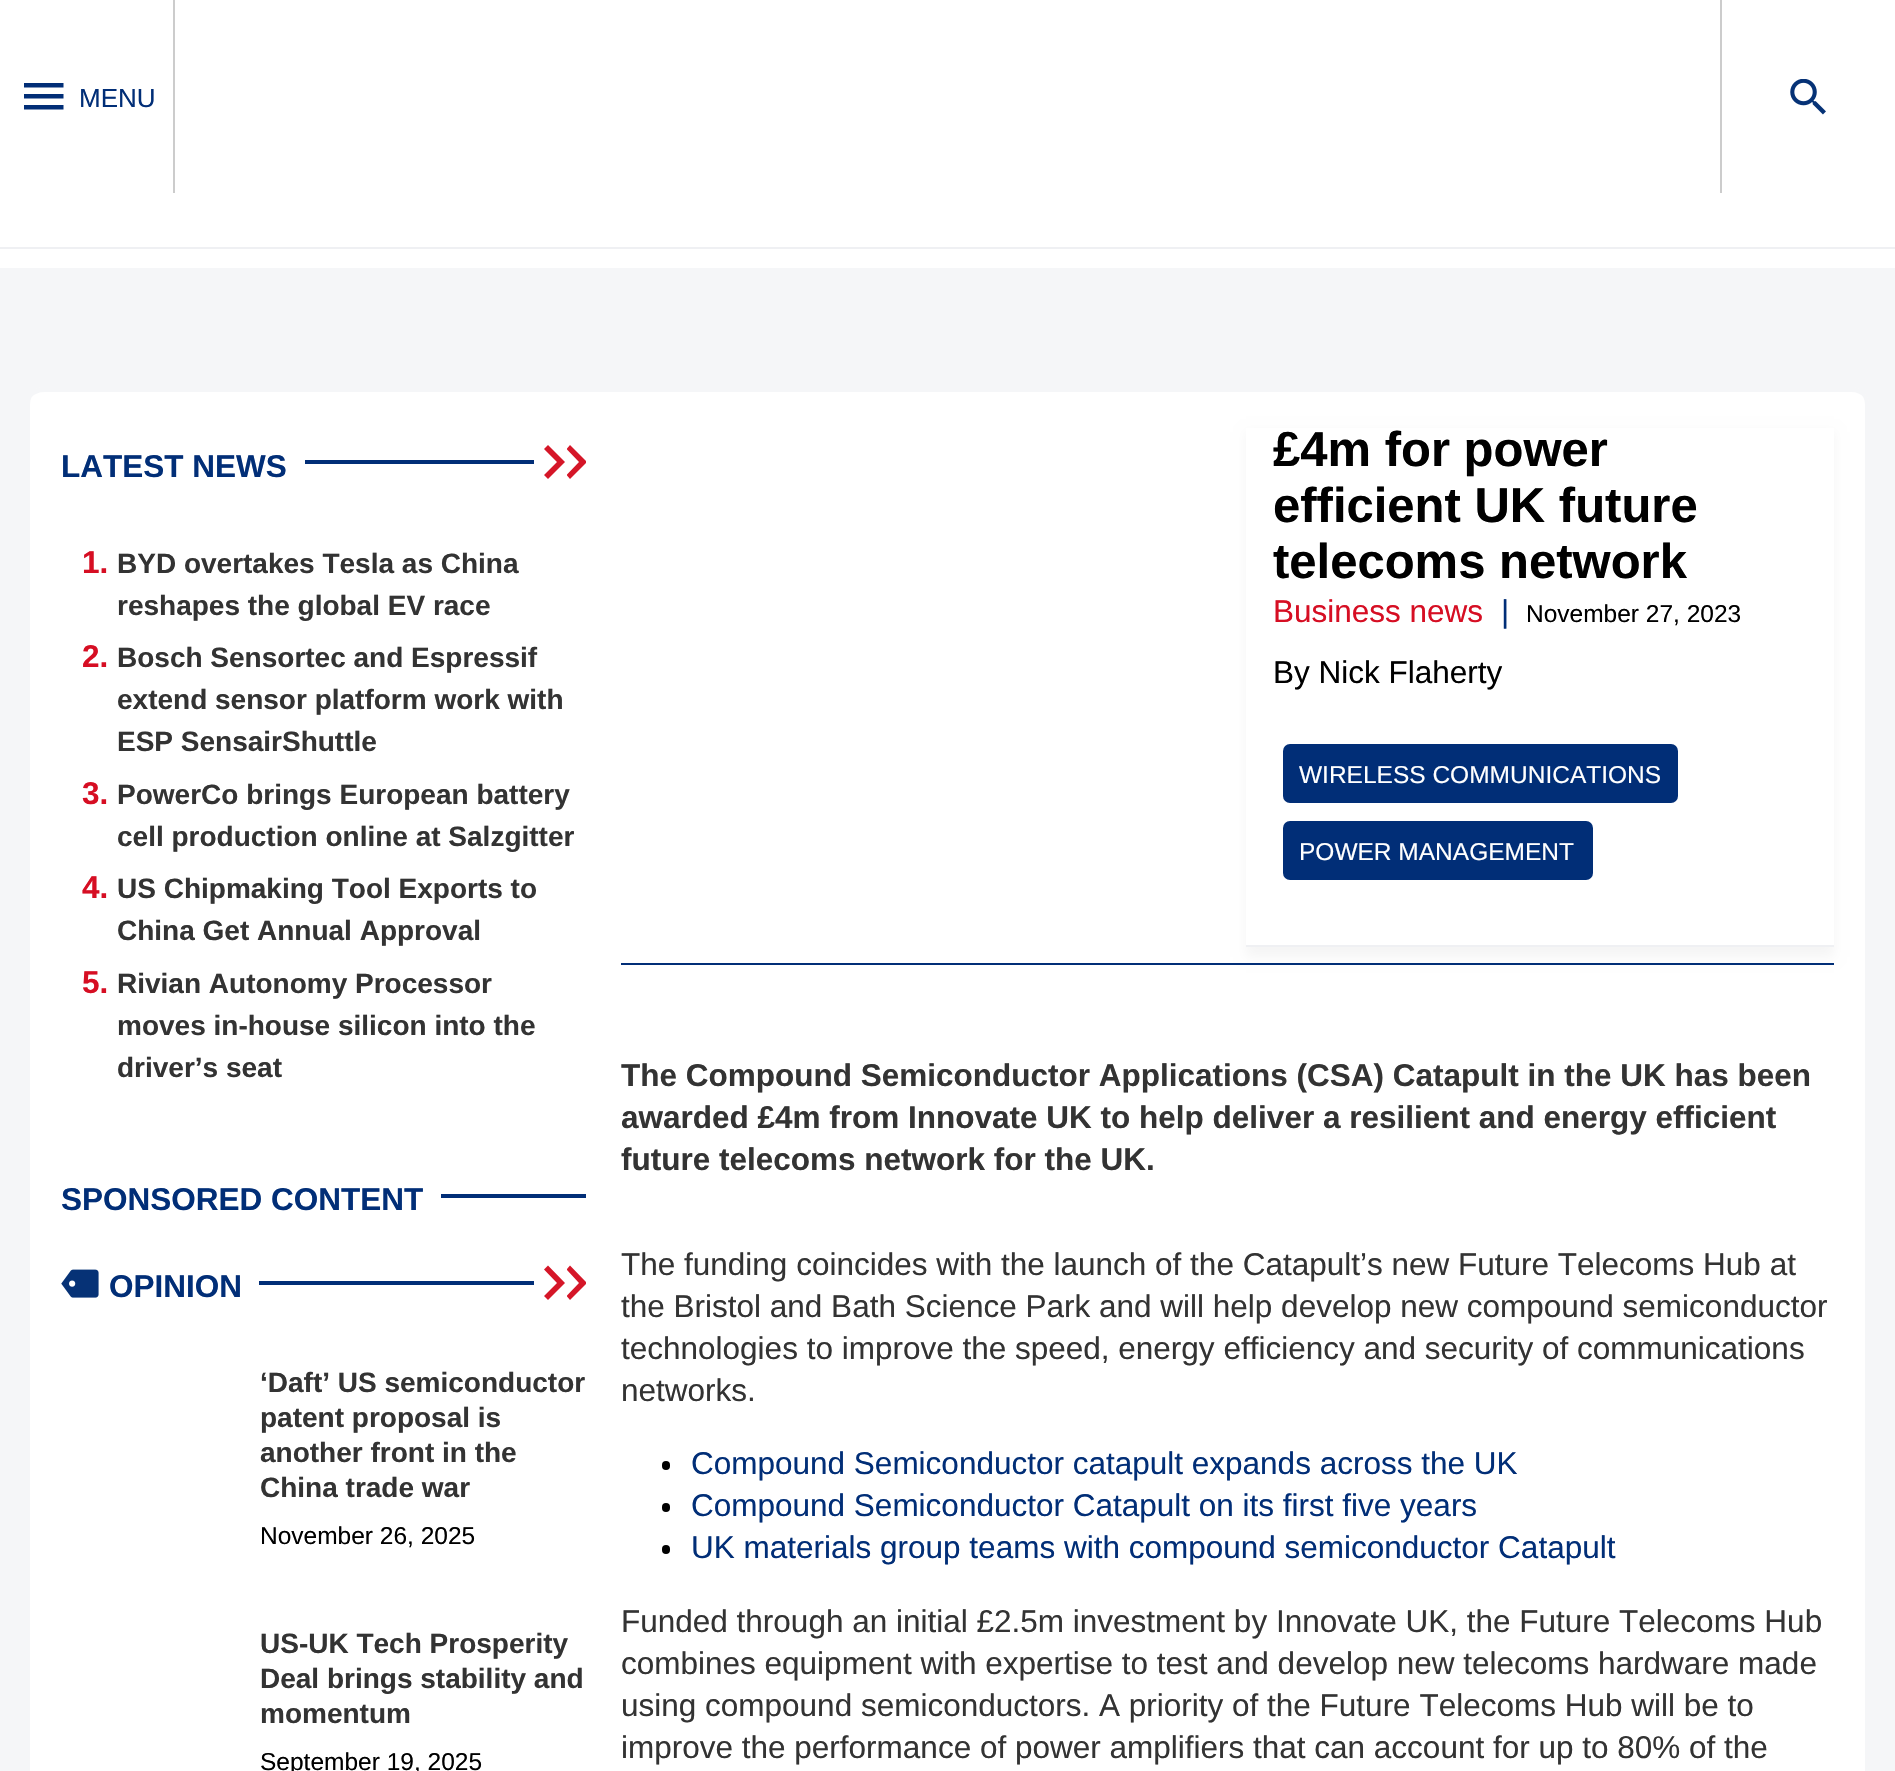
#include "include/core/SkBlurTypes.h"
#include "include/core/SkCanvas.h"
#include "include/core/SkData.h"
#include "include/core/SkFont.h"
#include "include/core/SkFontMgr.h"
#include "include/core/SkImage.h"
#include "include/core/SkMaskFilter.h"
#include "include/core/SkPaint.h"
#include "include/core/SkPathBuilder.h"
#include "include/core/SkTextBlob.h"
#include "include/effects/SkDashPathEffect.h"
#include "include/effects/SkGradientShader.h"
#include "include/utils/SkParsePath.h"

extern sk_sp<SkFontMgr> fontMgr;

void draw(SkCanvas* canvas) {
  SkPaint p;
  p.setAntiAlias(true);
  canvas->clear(SkColorSetRGB(245, 246, 248));
  p.setColor(SK_ColorWHITE);
  canvas->drawRect(SkRect::MakeLTRB(0, 0, 1895, 247), p);
  p.setColor(SkColorSetRGB(239, 240, 243));
  canvas->drawRect(SkRect::MakeLTRB(0, 247, 1895, 249), p);
  p.setColor(SkColorSetRGB(204, 204, 204));
  canvas->drawRect(SkRect::MakeLTRB(173, 0, 175, 193), p);
  p.setColor(SkColorSetRGB(1, 46, 119));
  canvas->drawPath(SkPathBuilder().moveTo(24, 83).lineTo(63.5f, 83).lineTo(63.5f, 87.5f).lineTo(24, 87.5f).lineTo(24, 83).moveTo(24, 94).lineTo(63.5f, 94).lineTo(63.5f, 98.5f).lineTo(24, 98.5f).lineTo(24, 94).moveTo(24, 105).lineTo(63.5f, 105).lineTo(63.5f, 109.5f).lineTo(24, 109.5f).close().detach(), p);
  p.setColor(SkColorSetRGB(204, 204, 204));
  canvas->drawRect(SkRect::MakeLTRB(1720, 0, 1722, 193), p);
  canvas->drawImageRect(SkImages::DeferredFromEncodedData(SkData::MakeFromFileName("images/1.png")), SkRect::MakeLTRB(1790, 79, 1826, 115), SkSamplingOptions());
  p.setColor(SK_ColorWHITE);
  canvas->drawRect(SkRect::MakeLTRB(0, 249, 1895, 268), p);
  canvas->drawRoundRect(SkRect::MakeLTRB(26, 387, 1869, 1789), 18, 18, p);
  p.setColor(SkColorSetRGB(245, 246, 248));
  canvas->drawPath(SkPathBuilder().moveTo(1847, 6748).lineTo(1851, 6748).cubicTo(1861, 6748, 1869, 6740, 1869, 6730).lineTo(1869, 405).cubicTo(1869, 395, 1861, 387, 1851, 387).lineTo(1847, 387).cubicTo(1857, 387, 1865, 395, 1865, 404).lineTo(1865, 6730).cubicTo(1865, 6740, 1857, 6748, 1847, 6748).close().detach(), p);
  canvas->drawPath(SkPathBuilder().moveTo(44, 387).cubicTo(34, 387, 26, 395, 26, 405).lineTo(26, 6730).cubicTo(26, 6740, 34, 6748, 44, 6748).lineTo(48, 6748).cubicTo(38, 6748, 30, 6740, 30, 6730).lineTo(30, 404).cubicTo(30, 395, 38, 387, 48, 387).close().detach(), p);
  canvas->drawPath(SkPathBuilder().moveTo(44, 392).lineTo(1852, 392).cubicTo(1861, 392, 1869, 400, 1869, 410).lineTo(1869, 405).cubicTo(1869, 395, 1861, 387, 1851, 387).lineTo(44, 387).cubicTo(34, 387, 26, 395, 26, 405).lineTo(26, 410).cubicTo(26, 400, 34, 392, 44, 392).close().detach(), p);
  p.setColor(SkColorSetRGB(1, 46, 119));
  canvas->drawRect(SkRect::MakeLTRB(305, 460, 534, 464), p);
  p.setColor(SkColorSetRGB(213, 22, 40));
  canvas->drawPath(SkPathBuilder(SkPathFillType::kEvenOdd).moveTo(548, 445).lineTo(544, 449).lineTo(557, 462).lineTo(544, 475).lineTo(548, 479).lineTo(565, 462).close().detach(), p);
  canvas->save();
  canvas->clipRect(SkRect::MakeLTRB(567, 445, 586, 480));
  canvas->drawPath(SkPathBuilder(SkPathFillType::kEvenOdd).moveTo(570, 445).lineTo(566.5f, 449).lineTo(579, 462).lineTo(566.5f, 475).lineTo(570, 479).lineTo(587, 462).close().detach(), p);
  canvas->restore();
  p.setColor(SkColorSetRGB(1, 46, 119));
  canvas->drawRect(SkRect::MakeLTRB(441, 1194, 586, 1198), p);
  canvas->drawImageRect(SkImages::DeferredFromEncodedData(SkData::MakeFromFileName("images/2.png")), SkRect::MakeLTRB(61, 1269, 99, 1298), SkSamplingOptions());
  canvas->drawRect(SkRect::MakeLTRB(259, 1281, 534, 1285), p);
  p.setColor(SkColorSetRGB(213, 22, 40));
  canvas->drawPath(SkPathBuilder(SkPathFillType::kEvenOdd).moveTo(548, 1265.5f).lineTo(544, 1269.5f).lineTo(557, 1283).lineTo(544, 1296).lineTo(548, 1300).lineTo(565, 1283).close().detach(), p);
  canvas->save();
  canvas->clipRect(SkRect::MakeLTRB(567, 1265, 586, 1300));
  canvas->drawPath(SkPathBuilder(SkPathFillType::kEvenOdd).moveTo(570, 1265.5f).lineTo(566.5f, 1269.5f).lineTo(579, 1283).lineTo(566.5f, 1296).lineTo(570, 1300).lineTo(587, 1283).close().detach(), p);
  canvas->restore();
  p.setColor(SkColorSetARGB(10, 0, 0, 0));
  p.setMaskFilter(SkMaskFilter::MakeBlur(kNormal_SkBlurStyle, 5.5f));
  canvas->drawRect(SkRect::MakeLTRB(1246, 432, 1834, 957), p);
  p.setMaskFilter(nullptr);
  p.setColor(SK_ColorWHITE);
  canvas->drawRect(SkRect::MakeLTRB(1246, 428, 1834, 945), p);
  p.setColor(SkColorSetRGB(239, 240, 243));
  canvas->drawRect(SkRect::MakeLTRB(1246, 945, 1834, 947), p);
  p.setColor(SkColorSetRGB(1, 46, 119));
  canvas->drawRoundRect(SkRect::MakeLTRB(1283, 744, 1678, 803), 7, 7, p);
  canvas->drawRoundRect(SkRect::MakeLTRB(1283, 821, 1593, 880), 7, 7, p);
  canvas->drawRect(SkRect::MakeLTRB(621, 963, 1834, 965), p);
  p.setColor(SK_ColorBLACK);
  canvas->drawRoundRect(SkRect::MakeLTRB(662, 1461, 670, 1470), 4, 4, p);
  canvas->drawRoundRect(SkRect::MakeLTRB(662, 1503, 670, 1512), 4, 4, p);
  canvas->drawRoundRect(SkRect::MakeLTRB(662, 1545, 670, 1554), 4, 4, p);
  SkFont font1(fontMgr->matchFamilyStyle("Liberation Sans", SkFontStyle::Normal()), 26);
  font1.setSubpixel(true);
  p.setColor(SkColorSetRGB(1, 46, 119));
  canvas->drawString("MENU", 79, 107, font1, p);
  SkFont font2(fontMgr->matchFamilyStyle("Liberation Sans", SkFontStyle::Bold()), 31.5f);
  font2.setSubpixel(true);
  canvas->drawString("LATEST NEWS", 61, 477, font2, p);
  p.setColor(SkColorSetRGB(214, 14, 35));
  canvas->drawString("1.", 82, 573, font2, p);
  SkFont font3(fontMgr->matchFamilyStyle("Liberation Sans", SkFontStyle::Bold()), 28);
  font3.setSubpixel(true);
  p.setColor(SkColorSetRGB(51, 51, 51));
  canvas->drawString("BYD overtakes Tesla as China", 117, 573, font3, p);
  canvas->drawString("reshapes the global EV race", 117, 615, font3, p);
  p.setColor(SkColorSetRGB(214, 14, 35));
  canvas->drawString("2.", 82, 667, font2, p);
  p.setColor(SkColorSetRGB(51, 51, 51));
  canvas->drawString("Bosch Sensortec and Espressif", 117, 667, font3, p);
  canvas->drawString("extend sensor platform work with", 117, 709, font3, p);
  canvas->drawString("ESP SensairShuttle", 117, 751, font3, p);
  p.setColor(SkColorSetRGB(214, 14, 35));
  canvas->drawString("3.", 82, 804, font2, p);
  p.setColor(SkColorSetRGB(51, 51, 51));
  canvas->drawString("PowerCo brings European battery", 117, 804, font3, p);
  canvas->drawString("cell production online at Salzgitter", 117, 846, font3, p);
  p.setColor(SkColorSetRGB(214, 14, 35));
  canvas->drawString("4.", 82, 898, font2, p);
  p.setColor(SkColorSetRGB(51, 51, 51));
  canvas->drawString("US Chipmaking Tool Exports to", 117, 898, font3, p);
  canvas->drawString("China Get Annual Approval", 117, 940, font3, p);
  p.setColor(SkColorSetRGB(214, 14, 35));
  canvas->drawString("5.", 82, 993, font2, p);
  p.setColor(SkColorSetRGB(51, 51, 51));
  canvas->drawString("Rivian Autonomy Processor", 117, 993, font3, p);
  canvas->drawString("moves in-house silicon into the", 117, 1035, font3, p);
  canvas->drawString("driver’s seat", 117, 1077, font3, p);
  p.setColor(SkColorSetRGB(1, 46, 119));
  canvas->drawString("SPONSORED CONTENT", 61, 1210, font2, p);
  canvas->drawString("OPINION", 109, 1297, font2, p);
  p.setColor(SkColorSetRGB(51, 51, 51));
  canvas->drawString("‘Daft’ US semiconductor", 260, 1392, font3, p);
  canvas->drawString("patent proposal is", 260, 1427, font3, p);
  canvas->drawString("another front in the", 260, 1462, font3, p);
  canvas->drawString("China trade war", 260, 1497, font3, p);
  SkFont font4(fontMgr->matchFamilyStyle("Liberation Sans", SkFontStyle::Normal()), 24.5f);
  font4.setSubpixel(true);
  p.setColor(SK_ColorBLACK);
  canvas->drawString("November 26, 2025", 260, 1544, font4, p);
  p.setColor(SkColorSetRGB(51, 51, 51));
  canvas->drawString("US-UK Tech Prosperity", 260, 1653, font3, p);
  canvas->drawString("Deal brings stability and", 260, 1688, font3, p);
  canvas->drawString("momentum", 260, 1723, font3, p);
  p.setColor(SK_ColorBLACK);
  canvas->drawString("September 19, 2025", 260, 1770, font4, p);
  SkFont font5(fontMgr->matchFamilyStyle("Liberation Sans", SkFontStyle::Bold()), 49);
  font5.setSubpixel(true);
  canvas->drawString("£4m for power", 1273, 466, font5, p);
  canvas->drawString("efficient UK future", 1273, 522, font5, p);
  canvas->drawString("telecoms network", 1273, 578, font5, p);
  SkFont font6(fontMgr->matchFamilyStyle("Liberation Sans", SkFontStyle::Normal()), 31.5f);
  font6.setSubpixel(true);
  p.setColor(SkColorSetRGB(214, 14, 35));
  canvas->drawString("Business news", 1273, 622, font6, p);
  p.setColor(SkColorSetRGB(1, 46, 119));
  canvas->drawString("|", 1501, 622, font6, p);
  p.setColor(SK_ColorBLACK);
  canvas->drawString("November 27, 2023", 1526, 622, font4, p);
  canvas->drawString("By Nick Flaherty", 1273, 683, font6, p);
  p.setColor(SK_ColorWHITE);
  canvas->drawString("WIRELESS COMMUNICATIONS", 1299, 783, font4, p);
  canvas->drawString("POWER MANAGEMENT", 1299, 860, font4, p);
  p.setColor(SkColorSetRGB(51, 51, 51));
  canvas->drawString("The Compound Semiconductor Applications (CSA) Catapult in the UK has been", 621, 1086, font2, p);
  canvas->drawString("awarded £4m from Innovate UK to help deliver a resilient and energy efficient", 621, 1128, font2, p);
  canvas->drawString("future telecoms network for the UK.", 621, 1170, font2, p);
  canvas->drawString("The funding coincides with the launch of the Catapult’s new Future Telecoms Hub at", 621, 1275, font6, p);
  canvas->drawString("the Bristol and Bath Science Park and will help develop new compound semiconductor", 621, 1317, font6, p);
  canvas->drawString("technologies to improve the speed, energy efficiency and security of communications", 621, 1359, font6, p);
  canvas->drawString("networks.", 621, 1401, font6, p);
  p.setColor(SkColorSetRGB(1, 46, 119));
  canvas->drawString("Compound Semiconductor catapult expands across the UK", 691, 1474, font6, p);
  canvas->drawString("Compound Semiconductor Catapult on its first five years", 691, 1516, font6, p);
  canvas->drawString("UK materials group teams with compound semiconductor Catapult", 691, 1558, font6, p);
  p.setColor(SkColorSetRGB(51, 51, 51));
  canvas->drawString("Funded through an initial £2.5m investment by Innovate UK, the Future Telecoms Hub", 621, 1632, font6, p);
  canvas->drawString("combines equipment with expertise to test and develop new telecoms hardware made", 621, 1674, font6, p);
  canvas->drawString("using compound semiconductors. A priority of the Future Telecoms Hub will be to", 621, 1716, font6, p);
  canvas->drawString("improve the performance of power amplifiers that can account for up to 80% of the", 621, 1758, font6, p);
}
